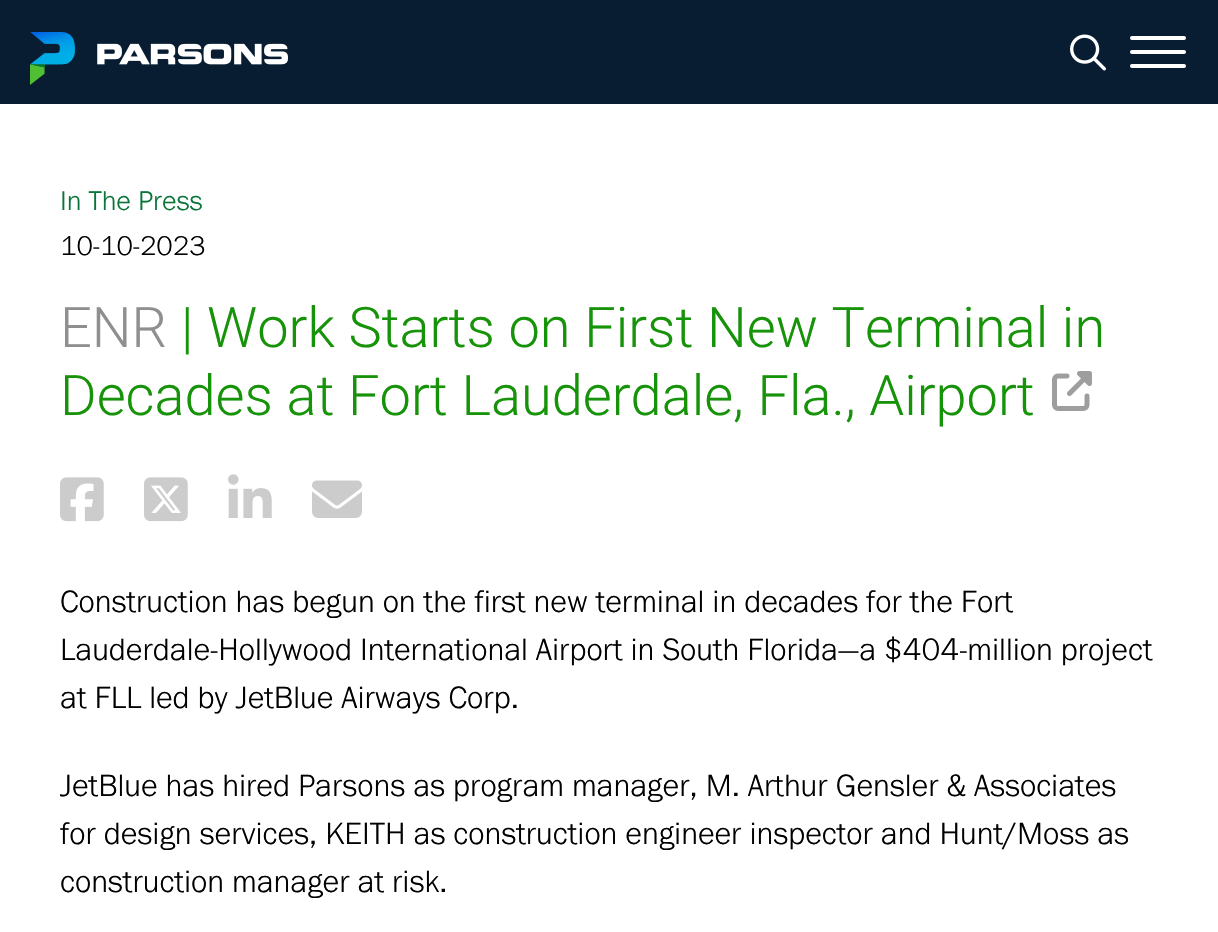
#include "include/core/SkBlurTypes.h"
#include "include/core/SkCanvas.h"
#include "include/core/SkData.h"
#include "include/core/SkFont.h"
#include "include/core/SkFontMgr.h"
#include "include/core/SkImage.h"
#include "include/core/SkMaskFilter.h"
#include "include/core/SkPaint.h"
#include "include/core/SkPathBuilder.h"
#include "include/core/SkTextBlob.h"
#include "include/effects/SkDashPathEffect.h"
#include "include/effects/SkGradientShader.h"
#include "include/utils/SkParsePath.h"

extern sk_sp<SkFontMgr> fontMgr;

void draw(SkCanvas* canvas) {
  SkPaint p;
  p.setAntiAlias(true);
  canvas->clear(SK_ColorWHITE);
  p.setColor(SkColorSetRGB(8, 29, 49));
  canvas->drawRect(SkRect::MakeLTRB(0, 0, 1218, 104), p);
  canvas->drawImageRect(SkImages::DeferredFromEncodedData(SkData::MakeFromFileName("images/1.png")), SkRect::MakeLTRB(30, 32, 288, 85), SkSamplingOptions());
  canvas->drawImageRect(SkImages::DeferredFromEncodedData(SkData::MakeFromFileName("images/2.png")), SkRect::MakeLTRB(1070, 34, 1106, 71), SkSamplingOptions());
  p.setColor(SK_ColorWHITE);
  canvas->drawRoundRect(SkRect::MakeLTRB(1130, 36, 1186, 40), 2, 2, p);
  canvas->drawRoundRect(SkRect::MakeLTRB(1130, 50, 1186, 54), 2, 2, p);
  canvas->drawRoundRect(SkRect::MakeLTRB(1130, 64, 1186, 68), 2, 2, p);
  canvas->drawImageRect(SkImages::DeferredFromEncodedData(SkData::MakeFromFileName("images/3.png")), SkRect::MakeLTRB(1052, 371, 1092, 411), SkSamplingOptions());
  canvas->drawImageRect(SkImages::DeferredFromEncodedData(SkData::MakeFromFileName("images/4.png")), SkRect::MakeLTRB(60, 477, 104, 522), SkSamplingOptions());
  canvas->drawImageRect(SkImages::DeferredFromEncodedData(SkData::MakeFromFileName("images/5.png")), SkRect::MakeLTRB(144, 477, 188, 522), SkSamplingOptions());
  canvas->drawImageRect(SkImages::DeferredFromEncodedData(SkData::MakeFromFileName("images/6.png")), SkRect::MakeLTRB(228, 474, 272, 518), SkSamplingOptions());
  canvas->drawImageRect(SkImages::DeferredFromEncodedData(SkData::MakeFromFileName("images/7.png")), SkRect::MakeLTRB(312, 480, 362, 518), SkSamplingOptions());
  SkFont font1(fontMgr->matchFamilyStyle("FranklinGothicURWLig", SkFontStyle::Normal()), 28);
  font1.setSubpixel(true);
  p.setColor(SkColorSetRGB(9, 117, 56));
  canvas->drawString("In The Press", 60, 210, font1, p);
  p.setColor(SK_ColorBLACK);
  canvas->drawString("10-10-2023", 60, 255, font1, p);
  SkFont font2(fontMgr->matchFamilyStyle("Roboto", SkFontStyle(300, SkFontStyle::kNormal_Width, SkFontStyle::kUpright_Slant)), 56);
  font2.setSubpixel(true);
  p.setColor(SkColorSetRGB(143, 143, 143));
  canvas->drawString("ENR", 60, 347, font2, p);
  p.setColor(SkColorSetRGB(22, 147, 9));
  canvas->drawString("| Work Starts on First New Terminal in", 181, 347, font2, p);
  canvas->drawString("Decades at Fort Lauderdale, Fla., Airport", 60, 415, font2, p);
  SkFont font3(fontMgr->matchFamilyStyle("FranklinGothicURWLig", SkFontStyle::Normal()), 32);
  font3.setSubpixel(true);
  p.setColor(SK_ColorBLACK);
  canvas->drawString("Construction has begun on the first new terminal in decades for the Fort", 60, 612, font3, p);
  canvas->drawString("Lauderdale-Hollywood International Airport in South Florida—a $404-million project", 60, 660, font3, p);
  canvas->drawString("at FLL led by JetBlue Airways Corp.", 60, 708, font3, p);
  canvas->drawString("JetBlue has hired Parsons as program manager, M. Arthur Gensler & Associates", 60, 796, font3, p);
  canvas->drawString("for design services, KEITH as construction engineer inspector and Hunt/Moss as", 60, 844, font3, p);
  canvas->drawString("construction manager at risk.", 60, 892, font3, p);
}
